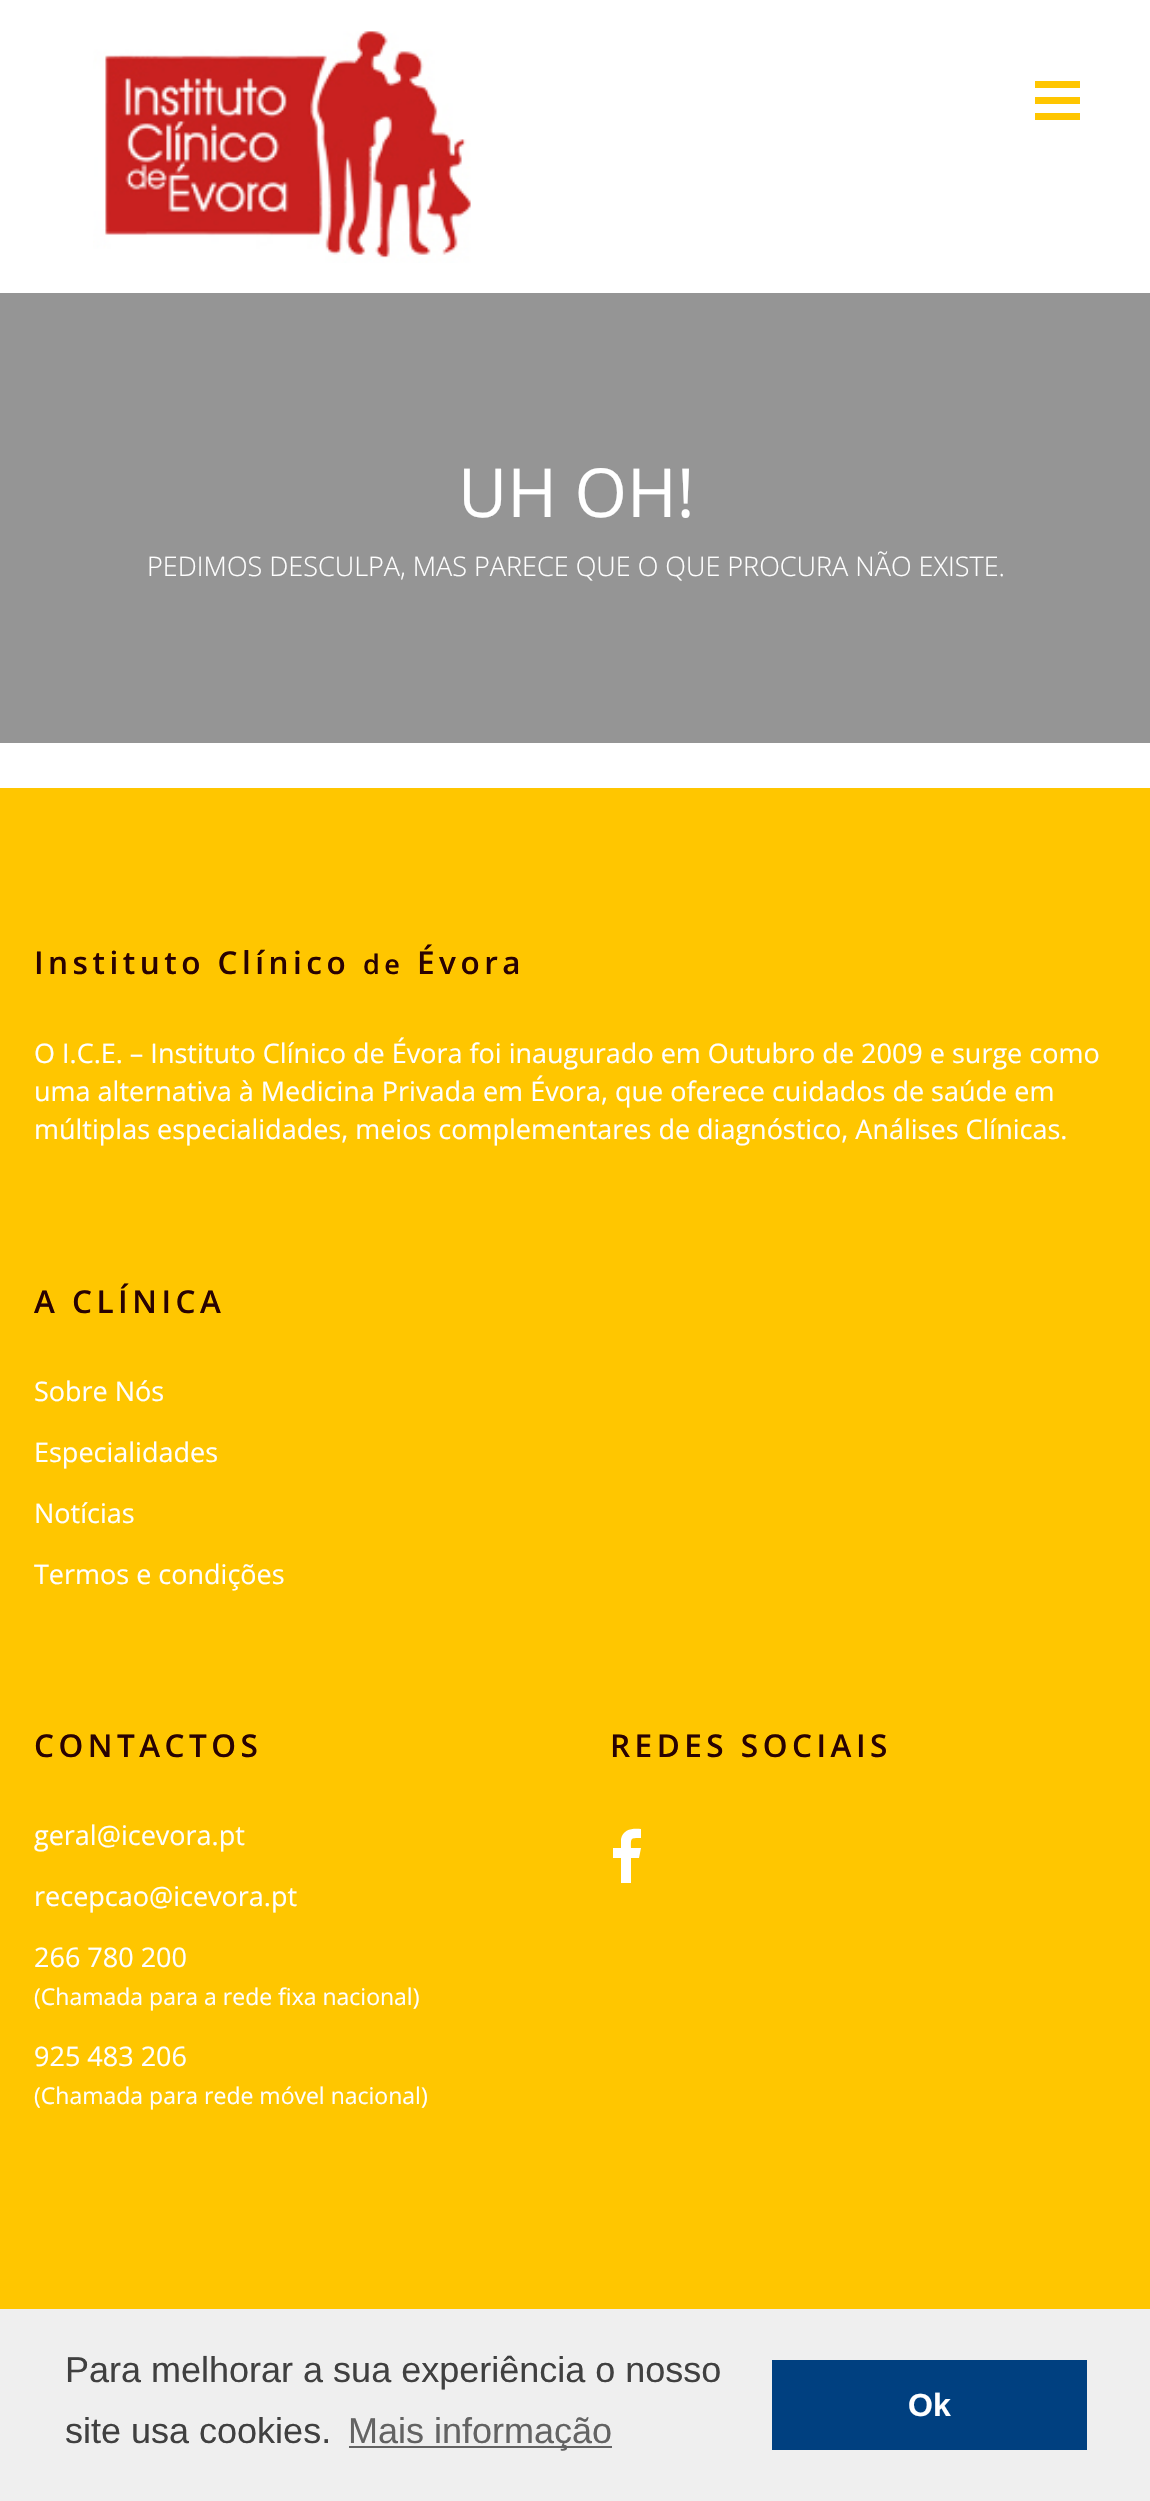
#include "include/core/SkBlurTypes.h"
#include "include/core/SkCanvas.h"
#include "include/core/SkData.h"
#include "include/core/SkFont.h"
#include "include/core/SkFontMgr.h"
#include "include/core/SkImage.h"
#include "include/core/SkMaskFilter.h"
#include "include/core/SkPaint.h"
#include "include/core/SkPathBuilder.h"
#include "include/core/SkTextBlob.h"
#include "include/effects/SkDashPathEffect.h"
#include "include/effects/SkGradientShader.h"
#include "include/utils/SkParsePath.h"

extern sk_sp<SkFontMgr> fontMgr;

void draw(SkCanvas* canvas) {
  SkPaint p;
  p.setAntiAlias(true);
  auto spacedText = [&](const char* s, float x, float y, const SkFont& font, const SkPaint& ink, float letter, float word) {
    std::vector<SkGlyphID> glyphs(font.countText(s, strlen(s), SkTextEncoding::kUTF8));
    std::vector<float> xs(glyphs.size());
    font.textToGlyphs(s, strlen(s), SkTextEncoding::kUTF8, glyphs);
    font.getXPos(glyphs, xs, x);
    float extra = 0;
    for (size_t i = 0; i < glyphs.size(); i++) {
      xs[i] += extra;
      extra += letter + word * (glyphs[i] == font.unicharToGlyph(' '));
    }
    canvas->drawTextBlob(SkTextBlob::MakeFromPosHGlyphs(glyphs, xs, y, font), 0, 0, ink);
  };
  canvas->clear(SK_ColorWHITE);
  canvas->drawImageRect(SkImages::DeferredFromEncodedData(SkData::MakeFromFileName("images/1.png")), SkRect::MakeLTRB(93, 31, 471, 263), SkSamplingOptions());
  p.setColor(SkColorSetRGB(255, 198, 0));
  canvas->drawRect(SkRect::MakeLTRB(1035, 81, 1080, 88), p);
  canvas->drawRect(SkRect::MakeLTRB(1035, 97, 1080, 104), p);
  canvas->drawRect(SkRect::MakeLTRB(1035, 113, 1080, 120), p);
  p.setColor(SkColorSetRGB(149, 149, 149));
  canvas->drawRect(SkRect::MakeLTRB(0, 293, 1150, 743), p);
  p.setColor(SkColorSetRGB(255, 198, 0));
  canvas->drawRect(SkRect::MakeLTRB(0, 788, 1150, 2309), p);
  p.setColor(SK_ColorWHITE);
  canvas->drawPath(SkPathBuilder().moveTo(641, 1829).lineTo(641, 1838).cubicTo(630, 1838, 631, 1838, 631, 1848).lineTo(641, 1848).lineTo(639, 1858).lineTo(631, 1858).lineTo(631, 1883).lineTo(621, 1883).lineTo(621, 1858).lineTo(613, 1858).lineTo(613, 1848).lineTo(621, 1848).lineTo(621, 1839).cubicTo(623, 1829, 633, 1828, 641, 1829).close().detach(), p);
  p.setColor(SkColorSetRGB(239, 239, 239));
  canvas->drawRect(SkRect::MakeLTRB(0, 2309, 1150, 2501), p);
  p.setColor(SkColorSetRGB(99, 99, 99));
  canvas->drawRect(SkRect::MakeLTRB(349, 2446, 612, 2448), p);
  p.setColor(SkColorSetRGB(0, 64, 128));
  canvas->drawRect(SkRect::MakeLTRB(772, 2360, 1087, 2450), p);
  SkFont font1(fontMgr->matchFamilyStyle("Open Sans", SkFontStyle::Normal()), 67.5f);
  font1.setSubpixel(true);
  p.setColor(SK_ColorWHITE);
  canvas->drawString("UH OH!", 458, 517, font1, p);
  SkFont font2(fontMgr->matchFamilyStyle("Open Sans", SkFontStyle(300, SkFontStyle::kNormal_Width, SkFontStyle::kUpright_Slant)), 27);
  font2.setSubpixel(true);
  canvas->drawString("PEDIMOS DESCULPA, MAS PARECE QUE O QUE PROCURA NÃO EXISTE.", 147, 576, font2, p);
  SkFont font3(fontMgr->matchFamilyStyle("Open Sans", SkFontStyle(600, SkFontStyle::kNormal_Width, SkFontStyle::kUpright_Slant)), 31.5f);
  font3.setSubpixel(true);
  p.setColor(SkColorSetRGB(41, 2, 2));
  spacedText("Instituto Clínico", 34, 974, font3, p, 4.5f, 0);
  SkFont font4(fontMgr->matchFamilyStyle("Open Sans", SkFontStyle(600, SkFontStyle::kNormal_Width, SkFontStyle::kUpright_Slant)), 27);
  font4.setSubpixel(true);
  spacedText("de", 363, 974, font4, p, 4.5f, 0);
  spacedText("Évora", 417, 974, font3, p, 4.5f, 0);
  SkFont font5(fontMgr->matchFamilyStyle("Open Sans", SkFontStyle::Normal()), 27);
  font5.setSubpixel(true);
  p.setColor(SK_ColorWHITE);
  canvas->drawString("O I.C.E. – Instituto Clínico de Évora foi inaugurado em Outubro de 2009 e surge como", 34, 1063, font5, p);
  canvas->drawString("uma alternativa à Medicina Privada em Évora, que oferece cuidados de saúde em", 34, 1101, font5, p);
  canvas->drawString("múltiplas especialidades, meios complementares de diagnóstico, Análises Clínicas.", 34, 1139, font5, p);
  p.setColor(SkColorSetRGB(41, 2, 2));
  spacedText("A CLÍNICA", 34, 1313, font3, p, 4.5f, 0);
  p.setColor(SK_ColorWHITE);
  canvas->drawString("Sobre Nós", 34, 1401, font5, p);
  canvas->drawString("Especialidades", 34, 1462, font5, p);
  canvas->drawString("Notícias", 34, 1523, font5, p);
  canvas->drawString("Termos e condições", 34, 1584, font5, p);
  p.setColor(SkColorSetRGB(41, 2, 2));
  spacedText("CONTACTOS", 34, 1757, font3, p, 4.5f, 0);
  p.setColor(SK_ColorWHITE);
  canvas->drawString("geral@icevora.pt", 34, 1845, font5, p);
  canvas->drawString("recepcao@icevora.pt", 34, 1906, font5, p);
  canvas->drawString("266 780 200", 34, 1967, font5, p);
  SkFont font6(fontMgr->matchFamilyStyle("Open Sans", SkFontStyle::Normal()), 23);
  font6.setSubpixel(true);
  canvas->drawString("(Chamada para a rede fixa nacional)", 34, 2005, font6, p);
  canvas->drawString("925 483 206", 34, 2066, font5, p);
  canvas->drawString("(Chamada para rede móvel nacional)", 34, 2104, font6, p);
  p.setColor(SkColorSetRGB(41, 2, 2));
  spacedText("REDES SOCIAIS", 610, 1757, font3, p, 4.5f, 0);
  SkFont font7(fontMgr->matchFamilyStyle("Liberation Sans", SkFontStyle::Normal()), 36);
  font7.setSubpixel(true);
  p.setColor(SkColorSetRGB(64, 64, 64));
  canvas->drawString("Para melhorar a sua experiência o nosso", 65, 2382, font7, p);
  canvas->drawString("site usa cookies.", 65, 2443, font7, p);
  p.setColor(SkColorSetRGB(99, 99, 99));
  canvas->drawString("Mais informação", 348, 2443, font7, p);
  SkFont font8(fontMgr->matchFamilyStyle("Liberation Sans", SkFontStyle::Bold()), 32);
  font8.setSubpixel(true);
  p.setColor(SK_ColorWHITE);
  canvas->drawString("Ok", 908, 2416, font8, p);
}
